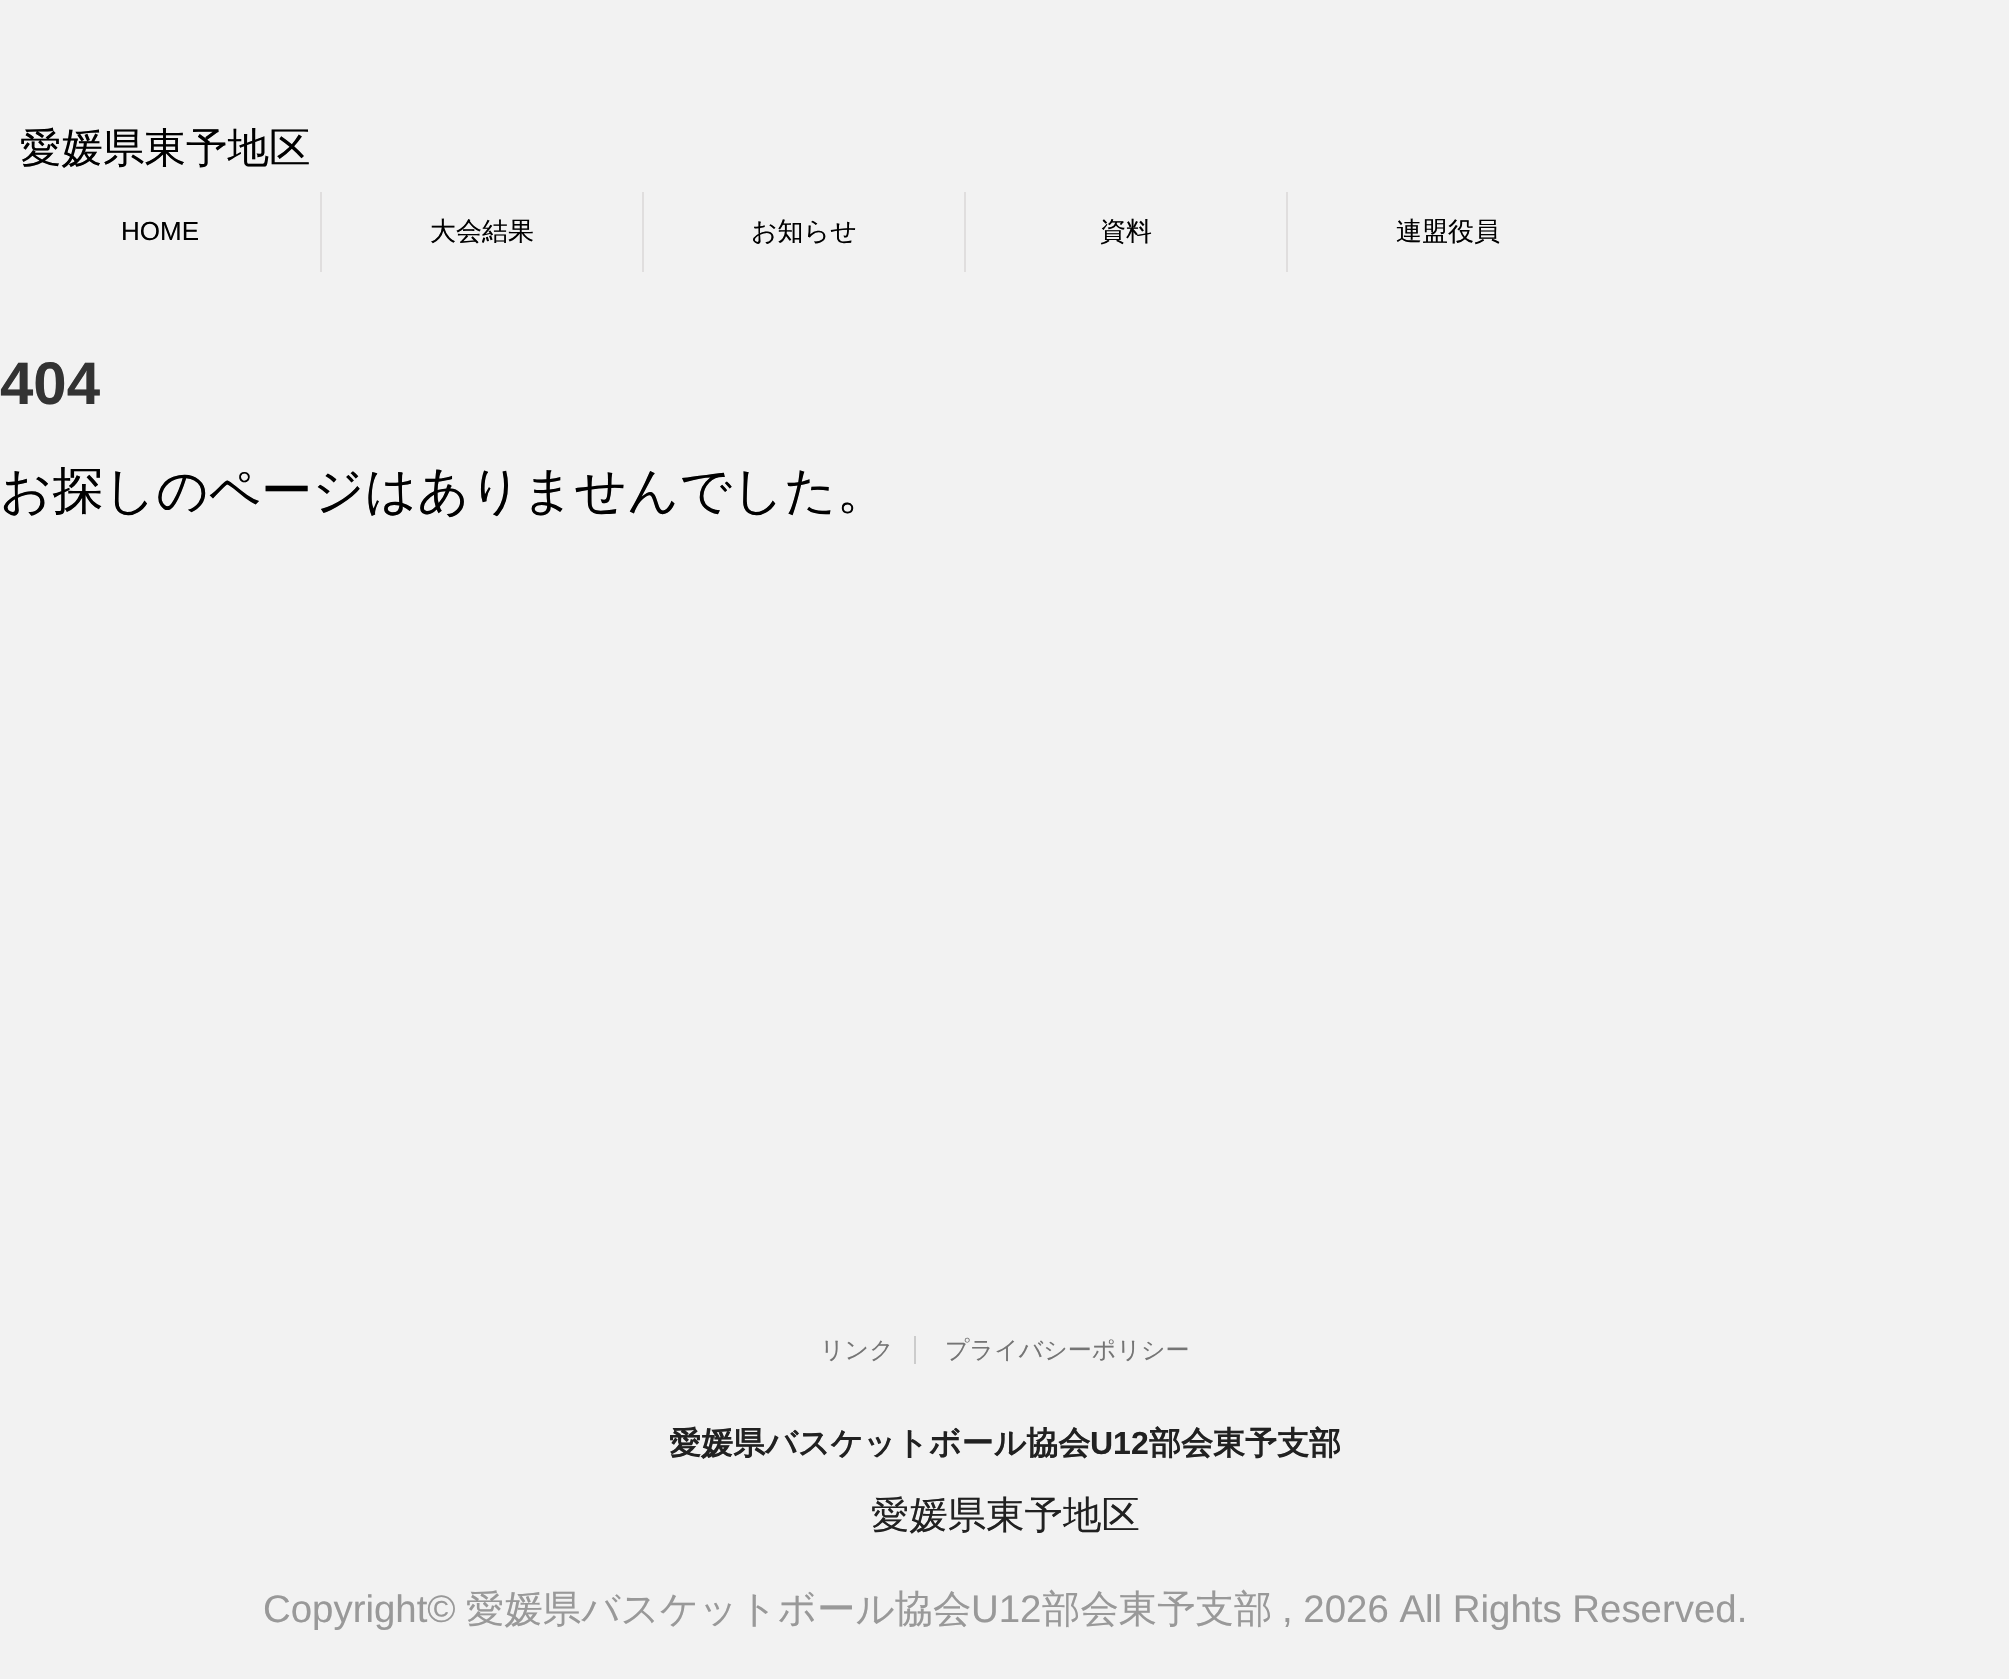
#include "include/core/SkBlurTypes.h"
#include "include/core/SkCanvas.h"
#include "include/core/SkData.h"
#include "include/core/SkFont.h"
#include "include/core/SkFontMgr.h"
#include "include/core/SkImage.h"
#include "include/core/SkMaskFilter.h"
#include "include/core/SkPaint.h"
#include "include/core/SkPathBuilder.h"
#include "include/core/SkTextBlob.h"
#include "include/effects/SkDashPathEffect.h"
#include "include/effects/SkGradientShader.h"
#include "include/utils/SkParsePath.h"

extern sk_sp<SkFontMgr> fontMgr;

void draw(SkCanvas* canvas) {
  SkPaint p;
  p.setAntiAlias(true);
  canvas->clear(SkColorSetRGB(242, 242, 242));
  p.setColor(SkColorSetRGB(224, 222, 222));
  canvas->drawRect(SkRect::MakeLTRB(320, 192, 322, 272), p);
  canvas->drawRect(SkRect::MakeLTRB(642, 192, 644, 272), p);
  canvas->drawRect(SkRect::MakeLTRB(964, 192, 966, 272), p);
  canvas->drawRect(SkRect::MakeLTRB(1286, 192, 1288, 272), p);
  p.setColor(SkColorSetRGB(204, 204, 204));
  canvas->drawRect(SkRect::MakeLTRB(914, 1336, 916, 1364), p);
  SkFont font1(fontMgr->matchFamilyStyle("WenQuanYi Zen Hei", SkFontStyle(500, SkFontStyle::kNormal_Width, SkFontStyle::kUpright_Slant)), 41.5f);
  font1.setSubpixel(true);
  p.setColor(SK_ColorBLACK);
  canvas->drawString("愛媛県東予地区", 20, 162, font1, p);
  SkFont font2(fontMgr->matchFamilyStyle("Liberation Sans", SkFontStyle::Normal()), 26);
  font2.setSubpixel(true);
  canvas->drawString("HOME", 121, 240, font2, p);
  SkFont font3(fontMgr->matchFamilyStyle("WenQuanYi Zen Hei", SkFontStyle(500, SkFontStyle::kNormal_Width, SkFontStyle::kUpright_Slant)), 26);
  font3.setSubpixel(true);
  canvas->drawString("大会結果", 430, 240, font3, p);
  canvas->drawString("お知らせ", 751, 240, font3, p);
  canvas->drawString("資料", 1100, 240, font3, p);
  canvas->drawString("連盟役員", 1396, 240, font3, p);
  SkFont font4(fontMgr->matchFamilyStyle("Liberation Sans", SkFontStyle::Bold()), 60);
  font4.setSubpixel(true);
  p.setColor(SkColorSetRGB(51, 51, 51));
  canvas->drawString("404", 0, 404, font4, p);
  SkFont font5(fontMgr->matchFamilyStyle("WenQuanYi Zen Hei", SkFontStyle(500, SkFontStyle::kNormal_Width, SkFontStyle::kUpright_Slant)), 51.25f);
  font5.setSubpixel(true);
  p.setColor(SK_ColorBLACK);
  canvas->drawString("お探しのページはありませんでした。", 0, 508, font5, p);
  SkFont font6(fontMgr->matchFamilyStyle("WenQuanYi Zen Hei", SkFontStyle(500, SkFontStyle::kNormal_Width, SkFontStyle::kUpright_Slant)), 24);
  font6.setSubpixel(true);
  p.setColor(SkColorSetRGB(117, 117, 117));
  canvas->drawString("リンク", 820, 1358, font6, p);
  canvas->drawString("プライバシーポリシー", 945, 1358, font6, p);
  SkFont font7(fontMgr->matchFamilyStyle("WenQuanYi Zen Hei", SkFontStyle::Bold()), 32);
  font7.setSubpixel(true);
  p.setColor(SkColorSetRGB(33, 33, 33));
  canvas->drawString("愛媛県バスケットボール協会", 669, 1454, font7, p);
  SkFont font8(fontMgr->matchFamilyStyle("Liberation Sans", SkFontStyle::Bold()), 32);
  font8.setSubpixel(true);
  canvas->drawString("U12", 1090, 1454, font8, p);
  canvas->drawString("部会東予支部", 1149, 1454, font7, p);
  SkFont font9(fontMgr->matchFamilyStyle("WenQuanYi Zen Hei", SkFontStyle(500, SkFontStyle::kNormal_Width, SkFontStyle::kUpright_Slant)), 38.4f);
  font9.setSubpixel(true);
  canvas->drawString("愛媛県東予地区", 871, 1528, font9, p);
  SkFont font10(fontMgr->matchFamilyStyle("Liberation Sans", SkFontStyle::Normal()), 38.4f);
  font10.setSubpixel(true);
  p.setColor(SkColorSetRGB(153, 153, 153));
  canvas->drawString("Copyright©", 263, 1622, font10, p);
  canvas->drawString("愛媛県バスケットボール協会", 466, 1622, font9, p);
  canvas->drawString("U12", 971, 1622, font10, p);
  canvas->drawString("部会東予支部", 1042, 1622, font9, p);
  canvas->drawString(", 2026 All Rights Reserved.", 1282, 1622, font10, p);
}
